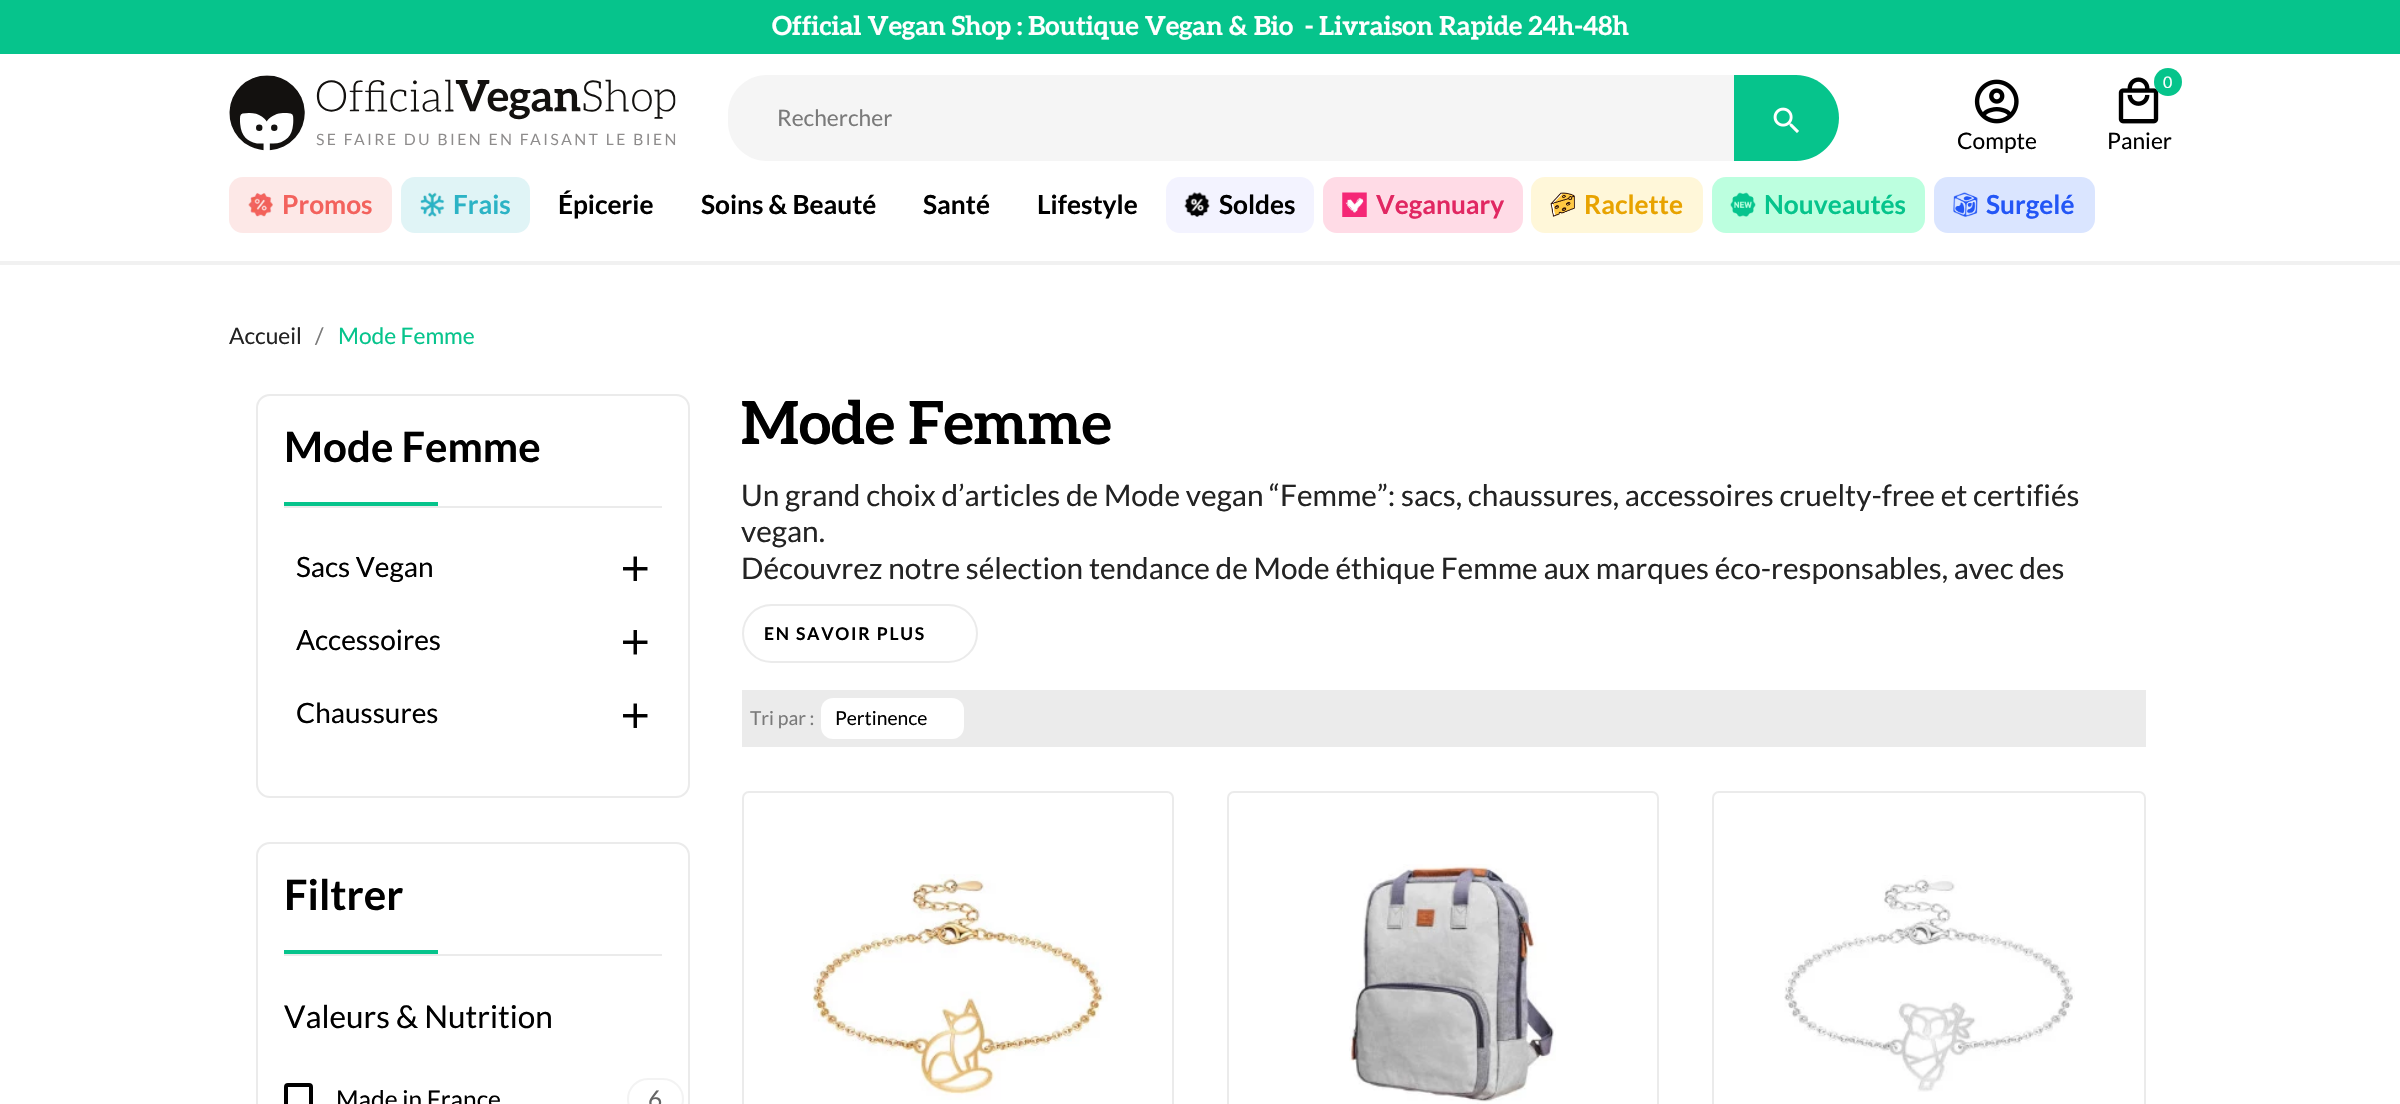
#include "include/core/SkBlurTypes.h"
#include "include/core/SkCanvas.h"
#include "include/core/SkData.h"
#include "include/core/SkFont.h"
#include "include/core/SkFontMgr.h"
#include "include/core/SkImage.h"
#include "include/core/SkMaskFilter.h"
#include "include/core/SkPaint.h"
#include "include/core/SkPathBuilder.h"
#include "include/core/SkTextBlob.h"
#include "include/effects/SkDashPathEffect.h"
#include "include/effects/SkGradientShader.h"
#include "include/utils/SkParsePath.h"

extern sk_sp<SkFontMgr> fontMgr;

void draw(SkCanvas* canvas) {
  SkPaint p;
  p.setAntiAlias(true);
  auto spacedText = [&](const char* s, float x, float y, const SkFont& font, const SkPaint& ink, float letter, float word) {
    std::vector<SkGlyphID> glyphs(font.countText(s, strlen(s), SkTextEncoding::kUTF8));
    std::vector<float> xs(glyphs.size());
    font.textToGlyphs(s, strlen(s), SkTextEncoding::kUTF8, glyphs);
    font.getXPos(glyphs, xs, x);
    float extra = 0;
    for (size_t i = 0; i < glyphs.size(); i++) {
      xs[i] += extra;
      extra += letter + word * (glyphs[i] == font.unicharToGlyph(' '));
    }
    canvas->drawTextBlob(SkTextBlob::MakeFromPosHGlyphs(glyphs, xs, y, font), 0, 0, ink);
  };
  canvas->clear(SK_ColorWHITE);
  p.setColor(SkColorSetRGB(6, 196, 140));
  canvas->drawRect(SkRect::MakeLTRB(0, 0, 2400, 54), p);
  p.setColor(SkColorSetRGB(241, 241, 241));
  canvas->drawRect(SkRect::MakeLTRB(0, 261, 2400, 265), p);
  canvas->drawImageRect(SkImages::DeferredFromEncodedData(SkData::MakeFromFileName("images/1.png")), SkRect::MakeLTRB(229, 75, 676, 151), SkSamplingOptions());
  p.setColor(SkColorSetRGB(245, 245, 245));
  canvas->drawPath(SkPathBuilder().moveTo(767, 75).lineTo(1734, 75).lineTo(1734, 161).lineTo(767, 161).cubicTo(745.5f, 161, 728, 143.5f, 728, 122).lineTo(728, 114).cubicTo(728, 92.5f, 745.5f, 75, 767, 75).close().detach(), p);
  p.setColor(SkColorSetRGB(6, 196, 140));
  canvas->drawPath(SkPathBuilder().moveTo(1734, 75).lineTo(1796, 75).cubicTo(1819.5f, 75, 1839, 94.5f, 1839, 118).cubicTo(1839, 141.5f, 1819.5f, 161, 1796, 161).lineTo(1734, 161).close().detach(), p);
  canvas->drawImageRect(SkImages::DeferredFromEncodedData(SkData::MakeFromFileName("images/2.png")), SkRect::MakeLTRB(1773, 107, 1799, 133), SkSamplingOptions());
  canvas->drawImageRect(SkImages::DeferredFromEncodedData(SkData::MakeFromFileName("images/3.png")), SkRect::MakeLTRB(1974, 79, 2019, 124), SkSamplingOptions());
  canvas->drawImageRect(SkImages::DeferredFromEncodedData(SkData::MakeFromFileName("images/4.png")), SkRect::MakeLTRB(2118, 77, 2159, 124), SkSamplingOptions());
  p.setColor(SkColorSetRGB(6, 196, 139));
  canvas->drawCircle(2168, 82, 14, p);
  p.setColor(SkColorSetRGB(253, 232, 231));
  canvas->drawRoundRect(SkRect::MakeLTRB(229, 177, 392, 233), 14, 14, p);
  canvas->drawImageRect(SkImages::DeferredFromEncodedData(SkData::MakeFromFileName("images/5.png")), SkRect::MakeLTRB(248, 193, 273, 217), SkSamplingOptions());
  p.setColor(SkColorSetRGB(224, 244, 246));
  canvas->drawRoundRect(SkRect::MakeLTRB(401, 177, 530, 233), 14, 14, p);
  canvas->drawImageRect(SkImages::DeferredFromEncodedData(SkData::MakeFromFileName("images/6.png")), SkRect::MakeLTRB(420, 192, 445, 217), SkSamplingOptions());
  p.setColor(SkColorSetRGB(243, 243, 255));
  canvas->drawRoundRect(SkRect::MakeLTRB(1166, 177, 1314, 233), 14, 14, p);
  canvas->drawImageRect(SkImages::DeferredFromEncodedData(SkData::MakeFromFileName("images/7.png")), SkRect::MakeLTRB(1184, 192, 1210, 217), SkSamplingOptions());
  p.setColor(SkColorSetRGB(255, 219, 230));
  canvas->drawRoundRect(SkRect::MakeLTRB(1323, 177, 1523, 233), 14, 14, p);
  canvas->drawImageRect(SkImages::DeferredFromEncodedData(SkData::MakeFromFileName("images/8.png")), SkRect::MakeLTRB(1342, 192, 1367, 217), SkSamplingOptions());
  p.setColor(SkColorSetRGB(255, 247, 217));
  canvas->drawRoundRect(SkRect::MakeLTRB(1531, 177, 1703, 233), 14, 14, p);
  canvas->drawImageRect(SkImages::DeferredFromEncodedData(SkData::MakeFromFileName("images/9.png")), SkRect::MakeLTRB(1550, 192, 1575, 217), SkSamplingOptions());
  p.setColor(SkColorSetRGB(188, 255, 223));
  canvas->drawRoundRect(SkRect::MakeLTRB(1712, 177, 1925, 233), 14, 14, p);
  canvas->drawImageRect(SkImages::DeferredFromEncodedData(SkData::MakeFromFileName("images/10.png")), SkRect::MakeLTRB(1730, 192, 1756, 217), SkSamplingOptions());
  p.setColor(SkColorSetRGB(218, 229, 255));
  canvas->drawRoundRect(SkRect::MakeLTRB(1934, 177, 2095, 233), 14, 14, p);
  canvas->drawImageRect(SkImages::DeferredFromEncodedData(SkData::MakeFromFileName("images/11.png")), SkRect::MakeLTRB(1953, 192, 1978, 217), SkSamplingOptions());
  p.setStyle(SkPaint::kStroke_Style);
  p.setStrokeWidth(2);
  p.setColor(SkColorSetRGB(235, 235, 235));
  canvas->drawRoundRect(SkRect::MakeLTRB(257, 395, 689, 797), 13, 13, p);
  p.setStyle(SkPaint::kFill_Style);
  canvas->drawRect(SkRect::MakeLTRB(284, 506, 662, 508), p);
  p.setColor(SkColorSetRGB(6, 196, 140));
  canvas->drawRect(SkRect::MakeLTRB(284, 502, 438, 506), p);
  canvas->drawImageRect(SkImages::DeferredFromEncodedData(SkData::MakeFromFileName("images/12.png")), SkRect::MakeLTRB(623, 556, 648, 581), SkSamplingOptions());
  canvas->drawImageRect(SkImages::DeferredFromEncodedData(SkData::MakeFromFileName("images/13.png")), SkRect::MakeLTRB(623, 630, 648, 655), SkSamplingOptions());
  canvas->drawImageRect(SkImages::DeferredFromEncodedData(SkData::MakeFromFileName("images/12.png")), SkRect::MakeLTRB(623, 703, 648, 728), SkSamplingOptions());
  p.setStyle(SkPaint::kStroke_Style);
  p.setColor(SkColorSetRGB(235, 235, 235));
  canvas->drawRoundRect(SkRect::MakeLTRB(257, 843, 689, 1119), 13, 13, p);
  p.setStyle(SkPaint::kFill_Style);
  canvas->drawRect(SkRect::MakeLTRB(284, 954, 662, 956), p);
  p.setColor(SkColorSetRGB(6, 196, 140));
  canvas->drawRect(SkRect::MakeLTRB(284, 950, 438, 954), p);
  p.setStyle(SkPaint::kStroke_Style);
  p.setStrokeWidth(4);
  p.setColor(SK_ColorBLACK);
  canvas->drawRoundRect(SkRect::MakeLTRB(286, 1085, 311, 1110), 2, 2, p);
  p.setStrokeWidth(2);
  p.setColor(SkColorSetRGB(243, 243, 243));
  canvas->drawRoundRect(SkRect::MakeLTRB(628, 1079, 683, 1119), 20, 20, p);
  p.setColor(SkColorSetRGB(235, 235, 235));
  canvas->drawRoundRect(SkRect::MakeLTRB(743, 605, 977, 662), 28.5f, 28.5f, p);
  p.setStyle(SkPaint::kFill_Style);
  canvas->drawRect(SkRect::MakeLTRB(742, 690, 2146, 747), p);
  p.setColor(SK_ColorWHITE);
  canvas->drawRoundRect(SkRect::MakeLTRB(821, 698, 964, 739), 12, 12, p);
  p.setStyle(SkPaint::kStroke_Style);
  p.setColor(SkColorSetRGB(235, 235, 235));
  canvas->drawRoundRect(SkRect::MakeLTRB(743, 792, 1173, 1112), 6, 6, p);
  canvas->drawImageRect(SkImages::DeferredFromEncodedData(SkData::MakeFromFileName("images/14.png")), SkRect::MakeLTRB(812, 874, 1108, 1100), SkSamplingOptions());
  canvas->drawRoundRect(SkRect::MakeLTRB(1228, 792, 1658, 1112), 6, 6, p);
  canvas->drawImageRect(SkImages::DeferredFromEncodedData(SkData::MakeFromFileName("images/15.png")), SkRect::MakeLTRB(1349, 864, 1556, 1104), SkSamplingOptions());
  canvas->drawRoundRect(SkRect::MakeLTRB(1713, 792, 2145, 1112), 6, 6, p);
  canvas->drawImageRect(SkImages::DeferredFromEncodedData(SkData::MakeFromFileName("images/16.png")), SkRect::MakeLTRB(1784, 875, 2075, 1092), SkSamplingOptions());
  SkFont font1(fontMgr->matchFamilyStyle("Aleo", SkFontStyle::Bold()), 26.25f);
  font1.setSubpixel(true);
  p.setStyle(SkPaint::kFill_Style);
  p.setColor(SK_ColorWHITE);
  canvas->drawString("Official Vegan Shop : Boutique Vegan & Bio", 772, 35, font1, p);
  canvas->drawString("- Livraison Rapide 24h-48h", 1305, 35, font1, p);
  SkFont font2(fontMgr->matchFamilyStyle("Lato", SkFontStyle::Normal()), 22.75f);
  font2.setSubpixel(true);
  p.setColor(SkColorSetRGB(122, 122, 122));
  canvas->drawString("Rechercher", 777, 126, font2, p);
  p.setColor(SK_ColorBLACK);
  canvas->drawString("Compte", 1957, 149, font2, p);
  SkFont font3(fontMgr->matchFamilyStyle("Lato", SkFontStyle::Normal()), 16);
  font3.setSubpixel(true);
  p.setColor(SK_ColorWHITE);
  canvas->drawString("0", 2163, 88, font3, p);
  p.setColor(SK_ColorBLACK);
  canvas->drawString("Panier", 2107, 149, font2, p);
  SkFont font4(fontMgr->matchFamilyStyle("Lato", SkFontStyle::Bold()), 26.25f);
  font4.setSubpixel(true);
  p.setColor(SkColorSetRGB(243, 98, 93));
  canvas->drawString("Promos", 282, 214, font4, p);
  p.setColor(SkColorSetRGB(44, 179, 197));
  canvas->drawString("Frais", 453, 214, font4, p);
  p.setColor(SK_ColorBLACK);
  canvas->drawString("Épicerie", 558, 214, font4, p);
  canvas->drawString("Soins & Beauté", 701, 214, font4, p);
  canvas->drawString("Santé", 923, 214, font4, p);
  canvas->drawString("Lifestyle", 1037, 214, font4, p);
  canvas->drawString("Soldes", 1219, 214, font4, p);
  p.setColor(SkColorSetRGB(225, 39, 98));
  canvas->drawString("Veganuary", 1376, 214, font4, p);
  p.setColor(SkColorSetRGB(232, 163, 0));
  canvas->drawString("Raclette", 1584, 214, font4, p);
  p.setColor(SkColorSetRGB(6, 196, 140));
  canvas->drawString("Nouveautés", 1764, 214, font4, p);
  p.setColor(SkColorSetRGB(35, 86, 246));
  canvas->drawString("Surgelé", 1986, 214, font4, p);
  p.setColor(SkColorSetRGB(35, 35, 35));
  canvas->drawString("Accueil", 229, 344, font2, p);
  p.setColor(SkColorSetRGB(122, 122, 122));
  canvas->drawString("/", 315, 344, font2, p);
  p.setColor(SkColorSetRGB(6, 196, 140));
  canvas->drawString("Mode Femme", 338, 344, font2, p);
  SkFont font5(fontMgr->matchFamilyStyle("Lato", SkFontStyle::Bold()), 42);
  font5.setSubpixel(true);
  p.setColor(SK_ColorBLACK);
  canvas->drawString("Mode Femme", 284, 462, font5, p);
  SkFont font6(fontMgr->matchFamilyStyle("Lato", SkFontStyle::Normal()), 28);
  font6.setSubpixel(true);
  canvas->drawString("Sacs Vegan", 296, 577, font6, p);
  canvas->drawString("Accessoires", 296, 650, font6, p);
  canvas->drawString("Chaussures", 296, 723, font6, p);
  canvas->drawString("Filtrer", 284, 910, font5, p);
  SkFont font7(fontMgr->matchFamilyStyle("Lato", SkFontStyle::Normal()), 31.5f);
  font7.setSubpixel(true);
  canvas->drawString("Valeurs & Nutrition", 284, 1028, font7, p);
  SkFont font8(fontMgr->matchFamilyStyle("Lato", SkFontStyle::Normal()), 24.5f);
  font8.setSubpixel(true);
  canvas->drawString("Made in France", 336, 1108, font8, p);
  p.setColor(SkColorSetRGB(102, 102, 102));
  canvas->drawString("6", 648, 1108, font8, p);
  SkFont font9(fontMgr->matchFamilyStyle("Aleo", SkFontStyle::Bold()), 59.5f);
  font9.setSubpixel(true);
  p.setColor(SK_ColorBLACK);
  canvas->drawString("Mode Femme", 741, 444, font9, p);
  SkFont font10(fontMgr->matchFamilyStyle("Lato", SkFontStyle::Normal()), 29.75f);
  font10.setSubpixel(true);
  p.setColor(SkColorSetRGB(35, 35, 35));
  canvas->drawString("Un grand choix d’articles de Mode vegan “Femme”: sacs, chaussures, accessoires cruelty-free et certifiés", 741, 506, font10, p);
  canvas->drawString("vegan.", 741, 542, font10, p);
  canvas->drawString("Découvrez notre sélection tendance de Mode éthique Femme aux marques éco-responsables, avec des", 741, 579, font10, p);
  SkFont font11(fontMgr->matchFamilyStyle("Lato", SkFontStyle::Bold()), 17.5f);
  font11.setSubpixel(true);
  p.setColor(SK_ColorBLACK);
  spacedText("EN SAVOIR PLUS", 764, 640, font11, p, 1.75f, 0);
  SkFont font12(fontMgr->matchFamilyStyle("Lato", SkFontStyle::Normal()), 19.25f);
  font12.setSubpixel(true);
  p.setColor(SkColorSetRGB(122, 122, 122));
  canvas->drawString("Tri par :", 750, 725, font12, p);
  p.setColor(SK_ColorBLACK);
  canvas->drawString("Pertinence", 835, 725, font12, p);
}
